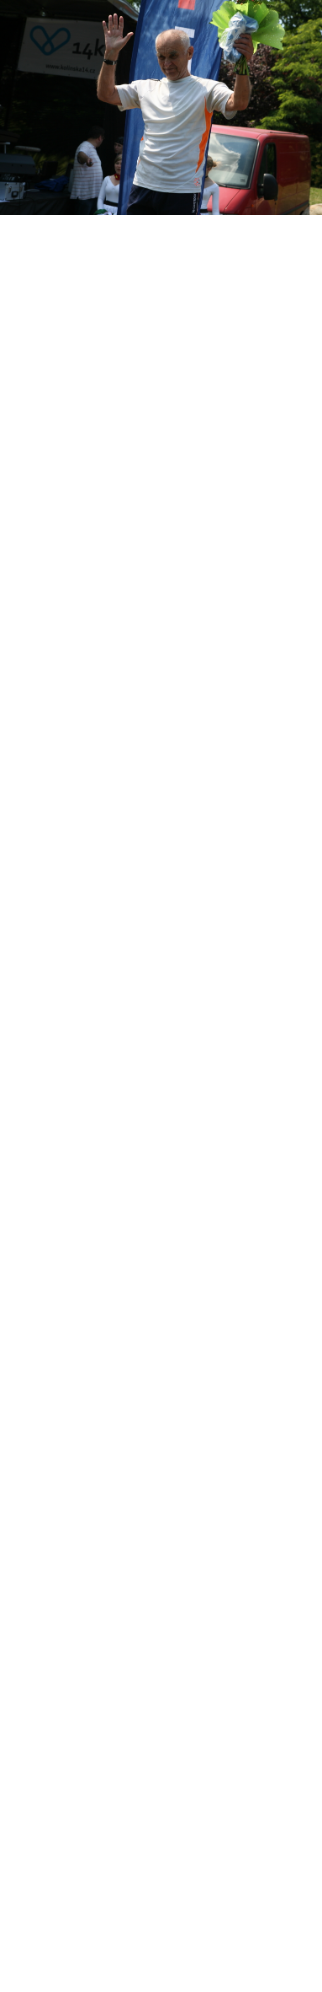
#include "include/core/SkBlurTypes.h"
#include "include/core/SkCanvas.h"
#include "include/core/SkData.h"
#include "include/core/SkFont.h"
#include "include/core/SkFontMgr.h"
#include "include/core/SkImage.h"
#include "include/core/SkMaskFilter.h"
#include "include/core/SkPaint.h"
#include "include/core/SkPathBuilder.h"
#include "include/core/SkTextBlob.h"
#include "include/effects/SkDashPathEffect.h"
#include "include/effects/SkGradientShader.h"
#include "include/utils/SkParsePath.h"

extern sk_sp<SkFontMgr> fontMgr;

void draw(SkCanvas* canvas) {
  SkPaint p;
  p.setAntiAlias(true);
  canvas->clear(SK_ColorWHITE);
  canvas->drawImageRect(SkImages::DeferredFromEncodedData(SkData::MakeFromFileName("images/1.png")), SkRect::MakeLTRB(0, 0, 322, 215), SkSamplingOptions());
}
